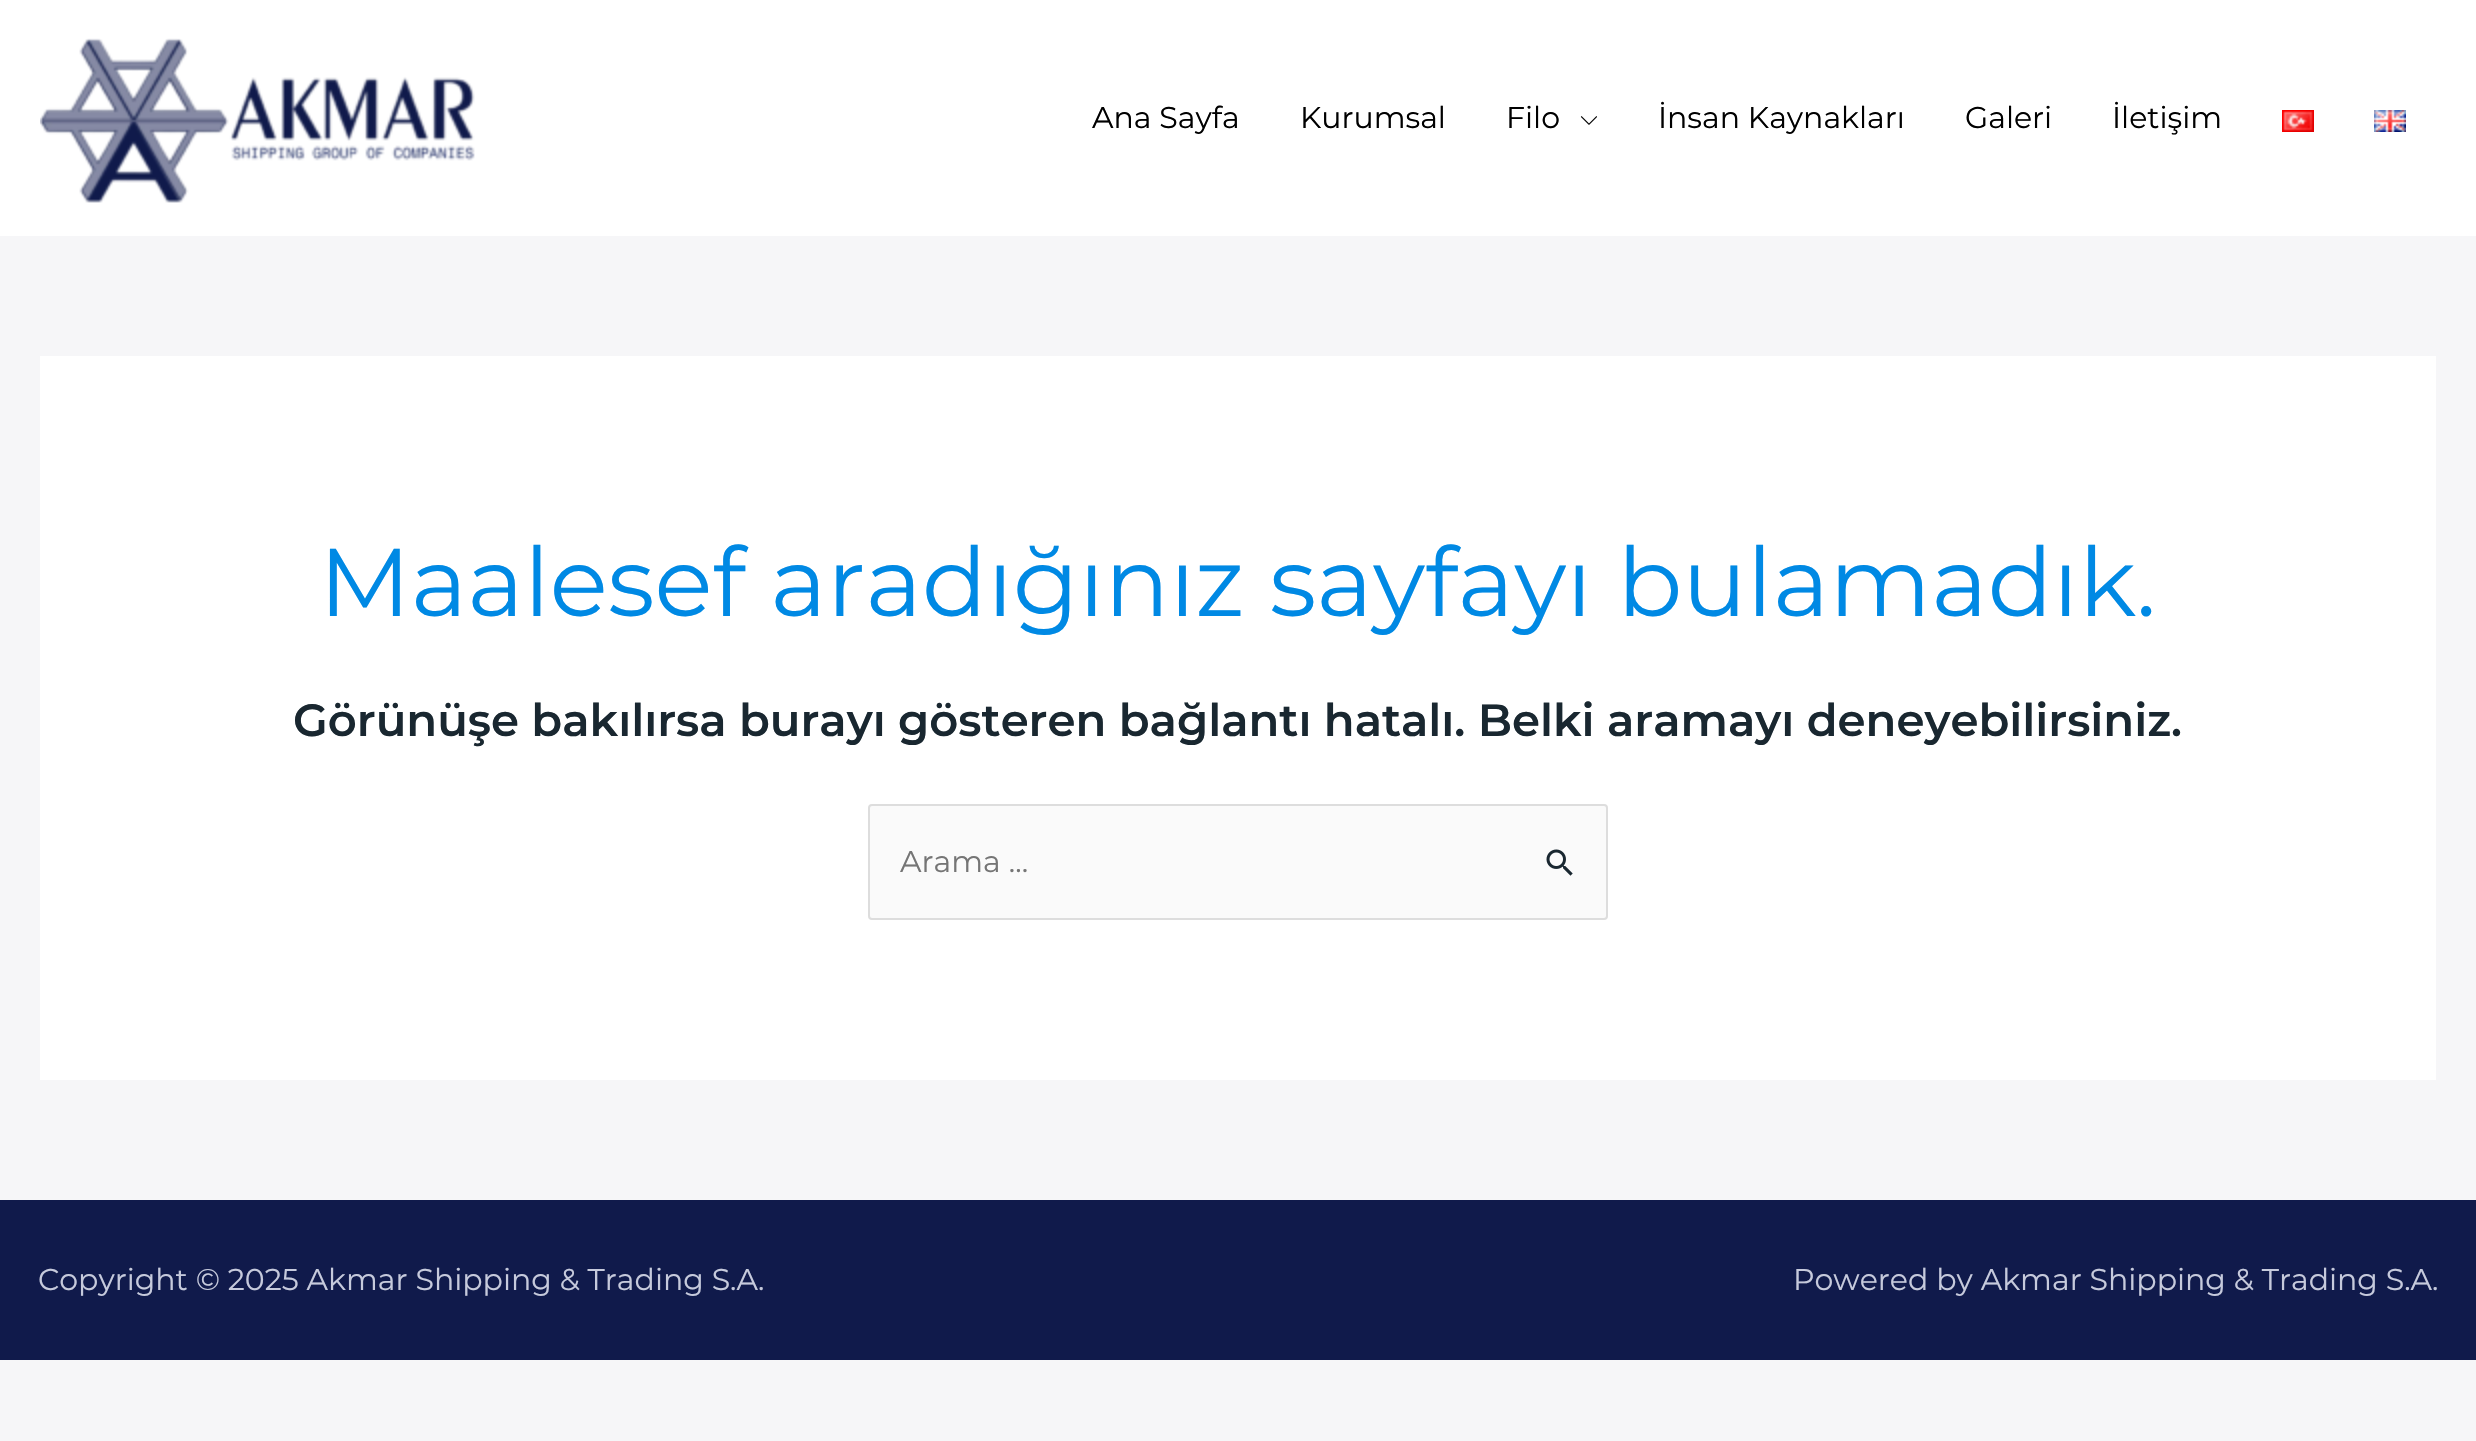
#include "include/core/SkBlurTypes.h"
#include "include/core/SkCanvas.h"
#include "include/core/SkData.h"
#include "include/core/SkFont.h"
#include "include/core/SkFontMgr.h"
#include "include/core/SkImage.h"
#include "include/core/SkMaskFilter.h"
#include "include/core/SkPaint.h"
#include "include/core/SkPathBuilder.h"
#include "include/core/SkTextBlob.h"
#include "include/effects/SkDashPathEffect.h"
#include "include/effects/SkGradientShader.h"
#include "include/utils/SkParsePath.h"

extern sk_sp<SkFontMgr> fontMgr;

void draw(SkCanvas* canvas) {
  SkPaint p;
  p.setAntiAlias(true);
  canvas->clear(SkColorSetRGB(246, 246, 248));
  p.setColor(SK_ColorWHITE);
  canvas->drawRect(SkRect::MakeLTRB(0, 0, 2476, 236), p);
  canvas->drawImageRect(SkImages::DeferredFromEncodedData(SkData::MakeFromFileName("images/1.png")), SkRect::MakeLTRB(40, 38, 475, 203), SkSamplingOptions());
  canvas->drawImageRect(SkImages::DeferredFromEncodedData(SkData::MakeFromFileName("images/2.png")), SkRect::MakeLTRB(1580, 116, 1597, 125), SkSamplingOptions());
  canvas->drawImageRect(SkImages::DeferredFromEncodedData(SkData::MakeFromFileName("images/3.png")), SkRect::MakeLTRB(2282, 110, 2314, 132), SkSamplingOptions());
  canvas->drawImageRect(SkImages::DeferredFromEncodedData(SkData::MakeFromFileName("images/4.png")), SkRect::MakeLTRB(2374, 110, 2406, 132), SkSamplingOptions());
  canvas->drawRect(SkRect::MakeLTRB(40, 356, 2436, 1080), p);
  p.setColor(SkColorSetRGB(250, 250, 250));
  canvas->drawRoundRect(SkRect::MakeLTRB(869, 805, 1607, 919), 3, 3, p);
  p.setStyle(SkPaint::kStroke_Style);
  p.setStrokeWidth(2);
  p.setColor(SkColorSetRGB(221, 221, 221));
  canvas->drawRoundRect(SkRect::MakeLTRB(869, 805, 1607, 919), 3, 3, p);
  canvas->drawImageRect(SkImages::DeferredFromEncodedData(SkData::MakeFromFileName("images/5.png")), SkRect::MakeLTRB(1546, 849, 1573, 876), SkSamplingOptions());
  p.setStyle(SkPaint::kFill_Style);
  p.setColor(SkColorSetRGB(16, 26, 75));
  canvas->drawRect(SkRect::MakeLTRB(0, 1200, 2476, 1360), p);
  SkFont font1(fontMgr->matchFamilyStyle("Montserrat", SkFontStyle::Normal()), 30);
  font1.setSubpixel(true);
  p.setColor(SK_ColorBLACK);
  canvas->drawString("Ana Sayfa", 1092, 128, font1, p);
  canvas->drawString("Kurumsal", 1300, 128, font1, p);
  canvas->drawString("Filo", 1506, 128, font1, p);
  canvas->drawString("İnsan Kaynakları", 1658, 128, font1, p);
  canvas->drawString("Galeri", 1965, 128, font1, p);
  canvas->drawString("İletişim", 2112, 128, font1, p);
  SkFont font2(fontMgr->matchFamilyStyle("Montserrat", SkFontStyle::Normal()), 96);
  font2.setSubpixel(true);
  p.setColor(SkColorSetRGB(0, 137, 228));
  canvas->drawString("Maalesef aradığınız sayfayı bulamadık.", 319, 616, font2, p);
  SkFont font3(fontMgr->matchFamilyStyle("Montserrat", SkFontStyle(600, SkFontStyle::kNormal_Width, SkFontStyle::kUpright_Slant)), 45);
  font3.setSubpixel(true);
  p.setColor(SkColorSetRGB(25, 39, 48));
  canvas->drawString("Görünüşe bakılırsa burayı gösteren bağlantı hatalı. Belki aramayı deneyebilirsiniz.", 293, 736, font3, p);
  p.setColor(SkColorSetRGB(117, 117, 117));
  canvas->drawString("Arama …", 900, 872, font1, p);
  p.setColor(SkColorSetRGB(198, 202, 220));
  canvas->drawString("Copyright © 2025 Akmar Shipping & Trading S.A.", 38, 1290, font1, p);
  canvas->drawString("Powered by Akmar Shipping & Trading S.A.", 1793, 1290, font1, p);
}
